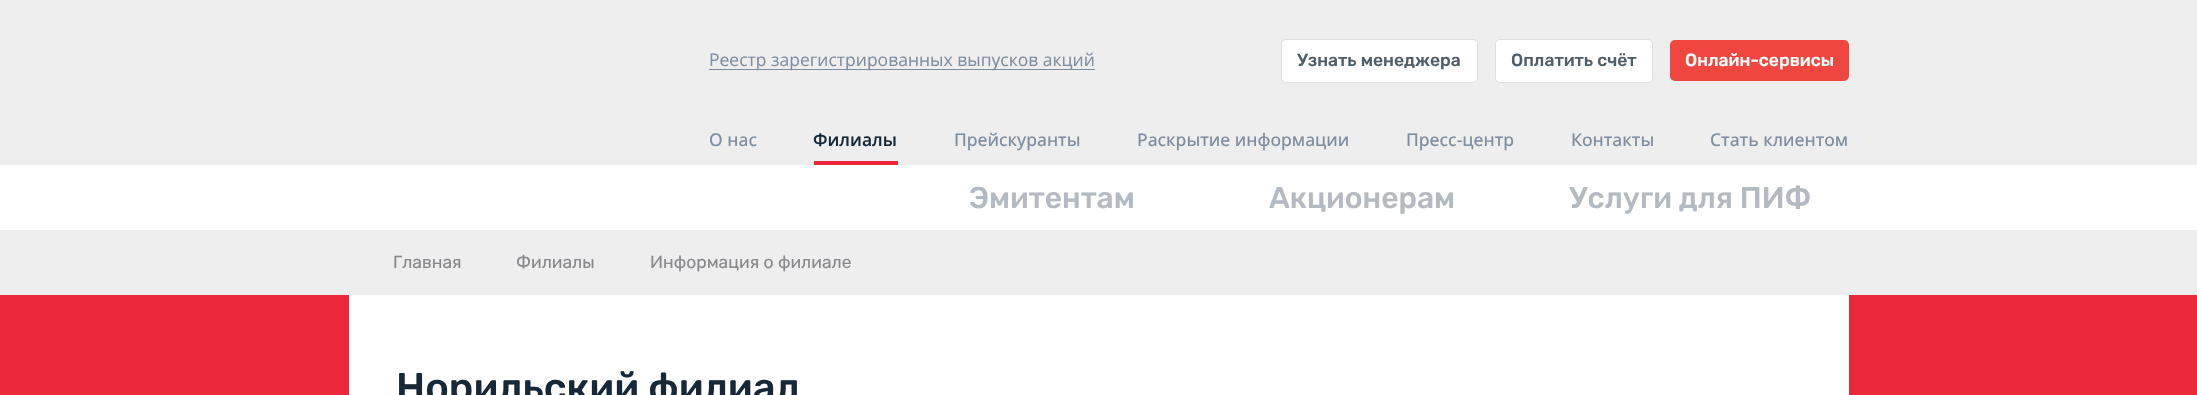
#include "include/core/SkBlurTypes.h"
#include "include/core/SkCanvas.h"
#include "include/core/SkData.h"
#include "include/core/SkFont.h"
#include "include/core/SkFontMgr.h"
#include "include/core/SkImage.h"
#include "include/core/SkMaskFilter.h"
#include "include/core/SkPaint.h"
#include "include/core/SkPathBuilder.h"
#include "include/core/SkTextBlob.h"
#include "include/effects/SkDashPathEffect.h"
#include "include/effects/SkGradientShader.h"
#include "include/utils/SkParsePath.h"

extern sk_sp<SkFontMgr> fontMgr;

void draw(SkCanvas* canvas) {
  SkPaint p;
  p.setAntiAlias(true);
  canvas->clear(SK_ColorWHITE);
  p.setColor(SkColorSetRGB(238, 238, 239));
  canvas->drawRect(SkRect::MakeLTRB(0, 0, 2197, 165), p);
  p.setColor(SkColorSetRGB(126, 141, 159));
  canvas->drawRect(SkRect::MakeLTRB(709, 69, 1095, 70), p);
  p.setColor(SK_ColorWHITE);
  canvas->drawRoundRect(SkRect::MakeLTRB(1281.5f, 39.5f, 1477.5f, 82.5f), 4.5f, 4.5f, p);
  p.setStyle(SkPaint::kStroke_Style);
  p.setStrokeWidth(1);
  p.setColor(SkColorSetRGB(220, 223, 225));
  canvas->drawRoundRect(SkRect::MakeLTRB(1281.5f, 39.5f, 1477.5f, 82.5f), 4.5f, 4.5f, p);
  p.setStyle(SkPaint::kFill_Style);
  p.setColor(SK_ColorWHITE);
  canvas->drawRoundRect(SkRect::MakeLTRB(1495.5f, 39.5f, 1652.5f, 82.5f), 4.5f, 4.5f, p);
  p.setStyle(SkPaint::kStroke_Style);
  p.setColor(SkColorSetRGB(220, 223, 225));
  canvas->drawRoundRect(SkRect::MakeLTRB(1495.5f, 39.5f, 1652.5f, 82.5f), 4.5f, 4.5f, p);
  p.setStyle(SkPaint::kFill_Style);
  p.setColor(SkColorSetRGB(239, 70, 64));
  canvas->drawRoundRect(SkRect::MakeLTRB(1670, 40, 1849, 81), 5, 5, p);
  p.setColor(SkColorSetRGB(234, 40, 57));
  canvas->drawRect(SkRect::MakeLTRB(814, 161, 898, 165), p);
  p.setColor(SkColorSetRGB(238, 238, 239));
  canvas->drawRect(SkRect::MakeLTRB(0, 230, 2197, 295), p);
  p.setColor(SkColorSetRGB(234, 40, 57));
  canvas->drawRect(SkRect::MakeLTRB(0, 295, 2197, 395), p);
  p.setColor(SK_ColorWHITE);
  canvas->drawRect(SkRect::MakeLTRB(349, 295, 1849, 395), p);
  SkFont font1(fontMgr->matchFamilyStyle("Open Sans", SkFontStyle::Normal()), 17.5f);
  font1.setSubpixel(true);
  p.setColor(SkColorSetRGB(126, 141, 159));
  canvas->drawString("Реестр зарегистрированных выпусков акций", 709, 66, font1, p);
  SkFont font2(fontMgr->matchFamilyStyle("Rubik", SkFontStyle(500, SkFontStyle::kNormal_Width, SkFontStyle::kUpright_Slant)), 17.5f);
  font2.setSubpixel(true);
  p.setColor(SkColorSetRGB(80, 94, 103));
  canvas->drawString("Узнать менеджера", 1297, 66, font2, p);
  canvas->drawString("Оплатить счёт", 1511, 66, font2, p);
  p.setColor(SK_ColorWHITE);
  canvas->drawString("Онлайн-сервисы", 1685, 66, font2, p);
  SkFont font3(fontMgr->matchFamilyStyle("Open Sans", SkFontStyle(500, SkFontStyle::kNormal_Width, SkFontStyle::kUpright_Slant)), 17.5f);
  font3.setSubpixel(true);
  p.setColor(SkColorSetRGB(126, 141, 159));
  canvas->drawString("О нас", 709, 146, font3, p);
  SkFont font4(fontMgr->matchFamilyStyle("Open Sans", SkFontStyle(600, SkFontStyle::kNormal_Width, SkFontStyle::kUpright_Slant)), 17.5f);
  font4.setSubpixel(true);
  p.setColor(SkColorSetRGB(23, 41, 56));
  canvas->drawString("Филиалы", 813, 146, font4, p);
  p.setColor(SkColorSetRGB(126, 141, 159));
  canvas->drawString("Прейскуранты", 954, 146, font3, p);
  canvas->drawString("Раскрытие информации", 1137, 146, font3, p);
  canvas->drawString("Пресс-центр", 1406, 146, font3, p);
  canvas->drawString("Контакты", 1571, 146, font3, p);
  canvas->drawString("Стать клиентом", 1710, 146, font3, p);
  SkFont font5(fontMgr->matchFamilyStyle("Rubik", SkFontStyle(500, SkFontStyle::kNormal_Width, SkFontStyle::kUpright_Slant)), 30);
  font5.setSubpixel(true);
  p.setColor(SkColorSetRGB(180, 186, 193));
  canvas->drawString("Эмитентам", 969, 208, font5, p);
  canvas->drawString("Акционерам", 1269, 208, font5, p);
  canvas->drawString("Услуги для ПИФ", 1569, 208, font5, p);
  SkFont font6(fontMgr->matchFamilyStyle("Rubik", SkFontStyle::Normal()), 17.5f);
  font6.setSubpixel(true);
  p.setColor(SkColorSetRGB(135, 137, 140));
  canvas->drawString("Главная", 393, 268, font6, p);
  canvas->drawString("Филиалы", 516, 268, font6, p);
  canvas->drawString("Информация о филиале", 650, 268, font6, p);
  SkFont font7(fontMgr->matchFamilyStyle("Rubik", SkFontStyle(500, SkFontStyle::kNormal_Width, SkFontStyle::kUpright_Slant)), 40);
  font7.setSubpixel(true);
  p.setColor(SkColorSetRGB(23, 41, 56));
  canvas->drawString("Норильский филиал", 396, 401, font7, p);
}
